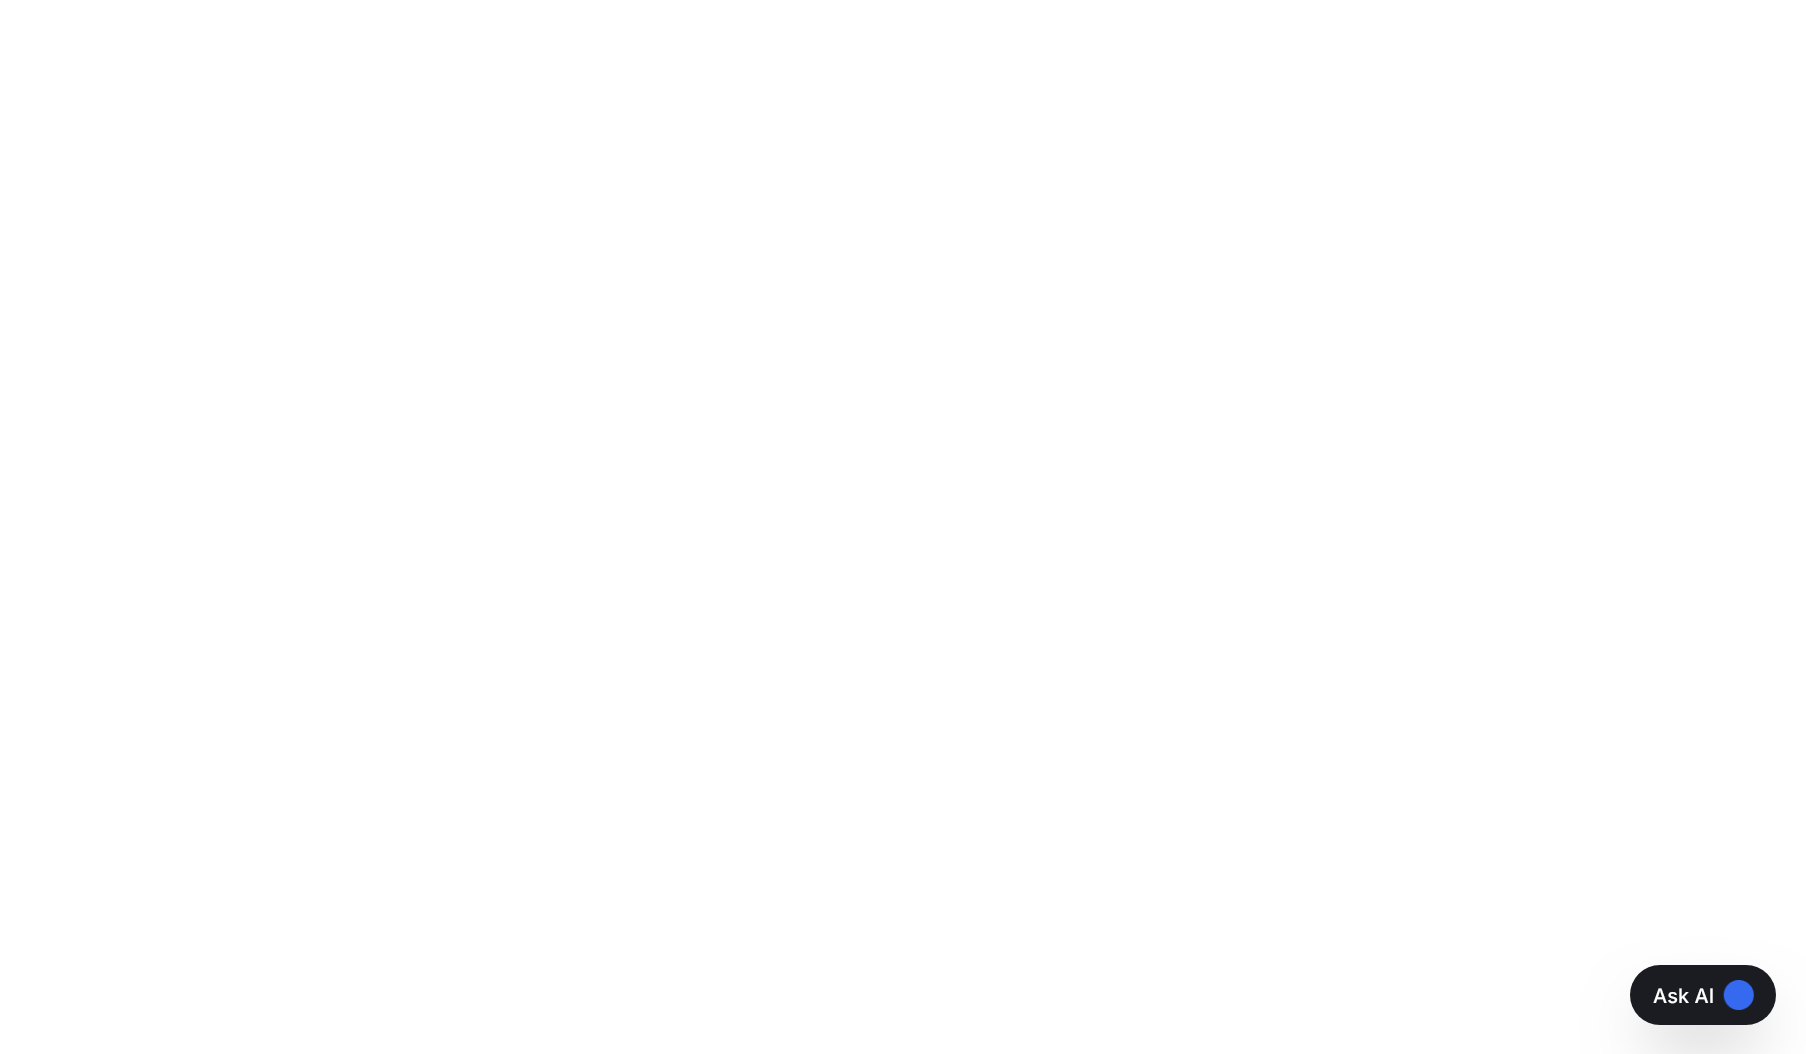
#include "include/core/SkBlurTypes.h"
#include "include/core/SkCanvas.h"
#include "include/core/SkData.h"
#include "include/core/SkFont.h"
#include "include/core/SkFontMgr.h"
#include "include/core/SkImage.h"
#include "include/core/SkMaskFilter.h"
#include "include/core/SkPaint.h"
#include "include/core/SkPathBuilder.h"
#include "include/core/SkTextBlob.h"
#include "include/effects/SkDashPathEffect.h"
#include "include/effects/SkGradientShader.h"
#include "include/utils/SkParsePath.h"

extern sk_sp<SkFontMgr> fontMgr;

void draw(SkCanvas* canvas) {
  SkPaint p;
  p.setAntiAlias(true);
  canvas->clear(SK_ColorWHITE);
  p.setColor(SkColorSetARGB(64, 0, 0, 0));
  p.setMaskFilter(SkMaskFilter::MakeBlur(kNormal_SkBlurStyle, 31));
  canvas->drawRoundRect(SkRect::MakeLTRB(1645, 1011, 1761, 1041), 15, 15, p);
  p.setMaskFilter(nullptr);
  p.setColor(SkColorSetRGB(27, 27, 34));
  canvas->drawRoundRect(SkRect::MakeLTRB(1630, 965, 1776, 1025), 30, 30, p);
  canvas->drawImageRect(SkImages::DeferredFromEncodedData(SkData::MakeFromFileName("images/1.png")), SkRect::MakeLTRB(1723, 980, 1754, 1010), SkSamplingOptions());
  SkFont font1(fontMgr->matchFamilyStyle("Inter", SkFontStyle(500, SkFontStyle::kNormal_Width, SkFontStyle::kUpright_Slant)), 20);
  font1.setSubpixel(true);
  p.setColor(SK_ColorWHITE);
  canvas->drawString("Ask AI", 1653, 1003, font1, p);
}
